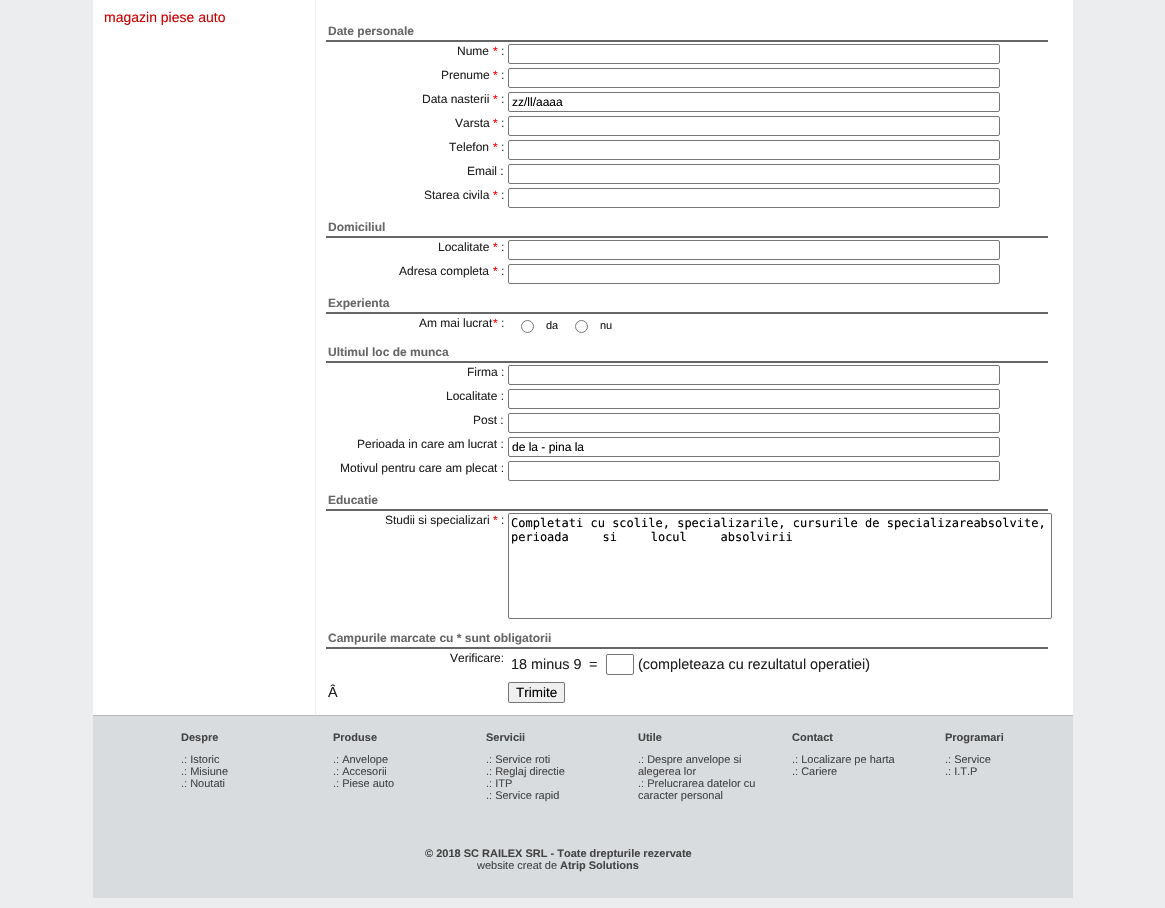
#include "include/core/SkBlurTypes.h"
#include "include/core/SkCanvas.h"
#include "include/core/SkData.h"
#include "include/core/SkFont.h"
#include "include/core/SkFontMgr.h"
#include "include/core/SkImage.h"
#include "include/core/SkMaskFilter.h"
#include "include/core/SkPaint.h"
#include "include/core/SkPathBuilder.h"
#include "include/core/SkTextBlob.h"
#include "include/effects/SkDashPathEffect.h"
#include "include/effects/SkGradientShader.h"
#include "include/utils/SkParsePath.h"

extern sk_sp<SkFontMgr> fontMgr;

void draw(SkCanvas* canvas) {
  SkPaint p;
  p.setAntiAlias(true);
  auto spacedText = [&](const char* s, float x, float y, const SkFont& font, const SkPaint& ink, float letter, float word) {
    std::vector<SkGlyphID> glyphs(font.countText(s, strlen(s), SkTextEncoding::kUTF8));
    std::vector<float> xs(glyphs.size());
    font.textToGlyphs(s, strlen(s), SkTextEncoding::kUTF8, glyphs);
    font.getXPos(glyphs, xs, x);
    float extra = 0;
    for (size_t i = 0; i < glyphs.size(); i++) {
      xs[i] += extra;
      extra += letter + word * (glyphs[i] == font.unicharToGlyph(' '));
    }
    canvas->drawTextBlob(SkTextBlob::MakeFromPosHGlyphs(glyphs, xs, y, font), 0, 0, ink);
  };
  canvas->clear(SkColorSetRGB(236, 237, 239));
  p.setColor(SK_ColorWHITE);
  canvas->drawRect(SkRect::MakeLTRB(93, 0, 1073, 715), p);
  p.setColor(SkColorSetRGB(236, 237, 239));
  canvas->drawRect(SkRect::MakeLTRB(315, 0, 316, 715), p);
  p.setColor(SkColorSetRGB(102, 102, 102));
  canvas->drawRect(SkRect::MakeLTRB(326, 40, 1048, 42), p);
  p.setStyle(SkPaint::kStroke_Style);
  p.setStrokeWidth(1);
  p.setColor(SkColorSetRGB(118, 118, 118));
  canvas->drawRoundRect(SkRect::MakeLTRB(508.5f, 44.5f, 999.5f, 63.5f), 1.5f, 1.5f, p);
  canvas->drawRoundRect(SkRect::MakeLTRB(508.5f, 68.5f, 999.5f, 87.5f), 1.5f, 1.5f, p);
  canvas->drawRoundRect(SkRect::MakeLTRB(508.5f, 92.5f, 999.5f, 111.5f), 1.5f, 1.5f, p);
  canvas->drawRoundRect(SkRect::MakeLTRB(508.5f, 116.5f, 999.5f, 135.5f), 1.5f, 1.5f, p);
  canvas->drawRoundRect(SkRect::MakeLTRB(508.5f, 140.5f, 999.5f, 159.5f), 1.5f, 1.5f, p);
  canvas->drawRoundRect(SkRect::MakeLTRB(508.5f, 164.5f, 999.5f, 183.5f), 1.5f, 1.5f, p);
  canvas->drawRoundRect(SkRect::MakeLTRB(508.5f, 188.5f, 999.5f, 207.5f), 1.5f, 1.5f, p);
  p.setStyle(SkPaint::kFill_Style);
  p.setColor(SkColorSetRGB(102, 102, 102));
  canvas->drawRect(SkRect::MakeLTRB(326, 236, 1048, 238), p);
  p.setStyle(SkPaint::kStroke_Style);
  p.setColor(SkColorSetRGB(118, 118, 118));
  canvas->drawRoundRect(SkRect::MakeLTRB(508.5f, 240.5f, 999.5f, 259.5f), 1.5f, 1.5f, p);
  canvas->drawRoundRect(SkRect::MakeLTRB(508.5f, 264.5f, 999.5f, 283.5f), 1.5f, 1.5f, p);
  p.setStyle(SkPaint::kFill_Style);
  p.setColor(SkColorSetRGB(102, 102, 102));
  canvas->drawRect(SkRect::MakeLTRB(326, 312, 1048, 314), p);
  p.setStyle(SkPaint::kStroke_Style);
  p.setColor(SkColorSetRGB(118, 118, 118));
  canvas->drawCircle(527.5f, 326.5f, 6, p);
  canvas->drawCircle(581.5f, 326.5f, 6, p);
  p.setStyle(SkPaint::kFill_Style);
  p.setColor(SkColorSetRGB(102, 102, 102));
  canvas->drawRect(SkRect::MakeLTRB(326, 361, 1048, 363), p);
  p.setStyle(SkPaint::kStroke_Style);
  p.setColor(SkColorSetRGB(118, 118, 118));
  canvas->drawRoundRect(SkRect::MakeLTRB(508.5f, 365.5f, 999.5f, 384.5f), 1.5f, 1.5f, p);
  canvas->drawRoundRect(SkRect::MakeLTRB(508.5f, 389.5f, 999.5f, 408.5f), 1.5f, 1.5f, p);
  canvas->drawRoundRect(SkRect::MakeLTRB(508.5f, 413.5f, 999.5f, 432.5f), 1.5f, 1.5f, p);
  canvas->drawRoundRect(SkRect::MakeLTRB(508.5f, 437.5f, 999.5f, 456.5f), 1.5f, 1.5f, p);
  canvas->drawRoundRect(SkRect::MakeLTRB(508.5f, 461.5f, 999.5f, 480.5f), 1.5f, 1.5f, p);
  p.setStyle(SkPaint::kFill_Style);
  p.setColor(SkColorSetRGB(102, 102, 102));
  canvas->drawRect(SkRect::MakeLTRB(326, 509, 1048, 511), p);
  p.setStyle(SkPaint::kStroke_Style);
  p.setColor(SkColorSetRGB(118, 118, 118));
  canvas->drawRoundRect(SkRect::MakeLTRB(508.5f, 513.5f, 1051.5f, 618.5f), 1.5f, 1.5f, p);
  p.setStyle(SkPaint::kFill_Style);
  p.setColor(SkColorSetRGB(102, 102, 102));
  canvas->drawRect(SkRect::MakeLTRB(326, 647, 1048, 649), p);
  p.setStyle(SkPaint::kStroke_Style);
  p.setColor(SkColorSetRGB(118, 118, 118));
  canvas->drawRoundRect(SkRect::MakeLTRB(606.5f, 654.5f, 633.5f, 674.5f), 1.5f, 1.5f, p);
  p.setStyle(SkPaint::kFill_Style);
  p.setColor(SkColorSetRGB(239, 239, 239));
  canvas->drawRoundRect(SkRect::MakeLTRB(508.5f, 682.5f, 564.5f, 702.5f), 1.5f, 1.5f, p);
  p.setStyle(SkPaint::kStroke_Style);
  p.setColor(SkColorSetRGB(118, 118, 118));
  canvas->drawRoundRect(SkRect::MakeLTRB(508.5f, 682.5f, 564.5f, 702.5f), 1.5f, 1.5f, p);
  p.setStyle(SkPaint::kFill_Style);
  p.setColor(SkColorSetRGB(217, 220, 223));
  canvas->drawRect(SkRect::MakeLTRB(93, 716, 1073, 898), p);
  p.setColor(SkColorSetRGB(187, 187, 187));
  canvas->drawRect(SkRect::MakeLTRB(93, 715, 1073, 716), p);
  SkFont font1(fontMgr->matchFamilyStyle("Liberation Sans", SkFontStyle::Normal()), 14);
  font1.setSubpixel(true);
  p.setColor(SkColorSetRGB(204, 0, 0));
  canvas->drawString("magazin piese auto", 104, 22, font1, p);
  SkFont font2(fontMgr->matchFamilyStyle("Liberation Sans", SkFontStyle::Bold()), 12);
  font2.setSubpixel(true);
  p.setColor(SkColorSetRGB(102, 102, 102));
  canvas->drawString("Date personale", 328, 35, font2, p);
  SkFont font3(fontMgr->matchFamilyStyle("Liberation Sans", SkFontStyle::Normal()), 12);
  font3.setSubpixel(true);
  p.setColor(SkColorSetRGB(34, 34, 34));
  canvas->drawString("Nume", 457, 55, font3, p);
  p.setColor(SkColorSetRGB(255, 0, 0));
  canvas->drawString("*", 493, 55, font3, p);
  p.setColor(SkColorSetRGB(34, 34, 34));
  canvas->drawString(":", 501, 55, font3, p);
  canvas->drawString("Prenume", 441, 79, font3, p);
  p.setColor(SkColorSetRGB(255, 0, 0));
  canvas->drawString("*", 493, 79, font3, p);
  p.setColor(SkColorSetRGB(34, 34, 34));
  canvas->drawString(":", 501, 79, font3, p);
  canvas->drawString("Data nasterii", 422, 103, font3, p);
  p.setColor(SkColorSetRGB(255, 0, 0));
  canvas->drawString("*", 493, 103, font3, p);
  p.setColor(SkColorSetRGB(34, 34, 34));
  canvas->drawString(":", 501, 103, font3, p);
  p.setColor(SK_ColorBLACK);
  canvas->drawString("zz/ll/aaaa", 512, 106, font3, p);
  p.setColor(SkColorSetRGB(34, 34, 34));
  canvas->drawString("Varsta", 455, 127, font3, p);
  p.setColor(SkColorSetRGB(255, 0, 0));
  canvas->drawString("*", 493, 127, font3, p);
  p.setColor(SkColorSetRGB(34, 34, 34));
  canvas->drawString(":", 501, 127, font3, p);
  canvas->drawString("Telefon", 449, 151, font3, p);
  p.setColor(SkColorSetRGB(255, 0, 0));
  canvas->drawString("*", 493, 151, font3, p);
  p.setColor(SkColorSetRGB(34, 34, 34));
  canvas->drawString(":", 501, 151, font3, p);
  canvas->drawString("Email :", 467, 175, font3, p);
  canvas->drawString("Starea civila", 424, 199, font3, p);
  p.setColor(SkColorSetRGB(255, 0, 0));
  canvas->drawString("*", 493, 199, font3, p);
  p.setColor(SkColorSetRGB(34, 34, 34));
  canvas->drawString(":", 501, 199, font3, p);
  p.setColor(SkColorSetRGB(102, 102, 102));
  canvas->drawString("Domiciliul", 328, 231, font2, p);
  p.setColor(SkColorSetRGB(34, 34, 34));
  canvas->drawString("Localitate", 438, 251, font3, p);
  p.setColor(SkColorSetRGB(255, 0, 0));
  canvas->drawString("*", 493, 251, font3, p);
  p.setColor(SkColorSetRGB(34, 34, 34));
  canvas->drawString(":", 501, 251, font3, p);
  canvas->drawString("Adresa completa", 399, 275, font3, p);
  p.setColor(SkColorSetRGB(255, 0, 0));
  canvas->drawString("*", 493, 275, font3, p);
  p.setColor(SkColorSetRGB(34, 34, 34));
  canvas->drawString(":", 501, 275, font3, p);
  p.setColor(SkColorSetRGB(102, 102, 102));
  canvas->drawString("Experienta", 328, 307, font2, p);
  p.setColor(SkColorSetRGB(34, 34, 34));
  canvas->drawString("Am mai lucrat", 419, 327, font3, p);
  p.setColor(SkColorSetRGB(255, 0, 0));
  canvas->drawString("*", 493, 327, font3, p);
  p.setColor(SkColorSetRGB(34, 34, 34));
  canvas->drawString(":", 501, 327, font3, p);
  SkFont font4(fontMgr->matchFamilyStyle("Liberation Sans", SkFontStyle::Normal()), 11);
  font4.setSubpixel(true);
  canvas->drawString("da", 546, 329, font4, p);
  canvas->drawString("nu", 600, 329, font4, p);
  p.setColor(SkColorSetRGB(102, 102, 102));
  canvas->drawString("Ultimul loc de munca", 328, 356, font2, p);
  p.setColor(SkColorSetRGB(34, 34, 34));
  canvas->drawString("Firma :", 467, 376, font3, p);
  canvas->drawString("Localitate :", 446, 400, font3, p);
  canvas->drawString("Post :", 473, 424, font3, p);
  canvas->drawString("Perioada in care am lucrat :", 357, 448, font3, p);
  p.setColor(SK_ColorBLACK);
  canvas->drawString("de la - pina la", 512, 451, font3, p);
  p.setColor(SkColorSetRGB(34, 34, 34));
  canvas->drawString("Motivul pentru care am plecat :", 340, 472, font3, p);
  p.setColor(SkColorSetRGB(102, 102, 102));
  canvas->drawString("Educatie", 328, 504, font2, p);
  p.setColor(SkColorSetRGB(34, 34, 34));
  canvas->drawString("Studii si specializari", 385, 524, font3, p);
  p.setColor(SkColorSetRGB(255, 0, 0));
  canvas->drawString("*", 493, 524, font3, p);
  p.setColor(SkColorSetRGB(34, 34, 34));
  canvas->drawString(":", 501, 524, font3, p);
  SkFont font5(fontMgr->matchFamilyStyle("DejaVu Sans Mono", SkFontStyle::Normal()), 12);
  font5.setSubpixel(true);
  p.setColor(SK_ColorBLACK);
  canvas->drawString("Completati cu scolile, specializarile, cursurile de specializareabsolvite,", 511, 527, font5, p);
  spacedText("perioada si locul absolvirii", 511, 541, font5, p, 0, 26.5f);
  p.setColor(SkColorSetRGB(102, 102, 102));
  canvas->drawString("Campurile marcate cu * sunt obligatorii", 328, 642, font2, p);
  p.setColor(SkColorSetRGB(34, 34, 34));
  canvas->drawString("Verificare:", 450, 662, font3, p);
  SkFont font6(fontMgr->matchFamilyStyle("Liberation Sans", SkFontStyle::Normal()), 14.4f);
  font6.setSubpixel(true);
  canvas->drawString("18 minus 9", 511, 669, font6, p);
  canvas->drawString("=", 589, 669, font6, p);
  canvas->drawString("(completeaza cu rezultatul operatiei)", 638, 669, font6, p);
  canvas->drawString("Â", 328, 697, font6, p);
  SkFont font7(fontMgr->matchFamilyStyle("Liberation Sans", SkFontStyle::Normal()), 13.5f);
  font7.setSubpixel(true);
  p.setColor(SK_ColorBLACK);
  canvas->drawString("Trimite", 516, 697, font7, p);
  SkFont font8(fontMgr->matchFamilyStyle("Liberation Sans", SkFontStyle::Bold()), 11);
  font8.setSubpixel(true);
  p.setColor(SkColorSetRGB(68, 68, 68));
  canvas->drawString("Despre", 181, 741, font8, p);
  canvas->drawString("Produse", 333, 741, font8, p);
  canvas->drawString("Servicii", 486, 741, font8, p);
  canvas->drawString("Utile", 638, 741, font8, p);
  canvas->drawString("Contact", 792, 741, font8, p);
  canvas->drawString("Programari", 945, 741, font8, p);
  canvas->drawString(".: Istoric", 181, 763, font4, p);
  canvas->drawString(".: Misiune", 181, 775, font4, p);
  canvas->drawString(".: Noutati", 181, 787, font4, p);
  canvas->drawString(".: Anvelope", 333, 763, font4, p);
  canvas->drawString(".: Accesorii", 333, 775, font4, p);
  canvas->drawString(".: Piese auto", 333, 787, font4, p);
  canvas->drawString(".: Service roti", 486, 763, font4, p);
  canvas->drawString(".: Reglaj directie", 486, 775, font4, p);
  canvas->drawString(".: ITP", 486, 787, font4, p);
  canvas->drawString(".: Service rapid", 486, 799, font4, p);
  canvas->drawString(".: Despre anvelope si", 638, 763, font4, p);
  canvas->drawString("alegerea lor", 638, 775, font4, p);
  canvas->drawString(".: Prelucrarea datelor cu", 638, 787, font4, p);
  canvas->drawString("caracter personal", 638, 799, font4, p);
  canvas->drawString(".: Localizare pe harta", 792, 763, font4, p);
  canvas->drawString(".: Cariere", 792, 775, font4, p);
  canvas->drawString(".: Service", 945, 763, font4, p);
  canvas->drawString(".: I.T.P", 945, 775, font4, p);
  canvas->drawString("© 2018 SC RAILEX SRL - Toate drepturile rezervate", 425, 857, font8, p);
  canvas->drawString("website creat de", 477, 869, font4, p);
  canvas->drawString("Atrip Solutions", 560, 869, font8, p);
}
